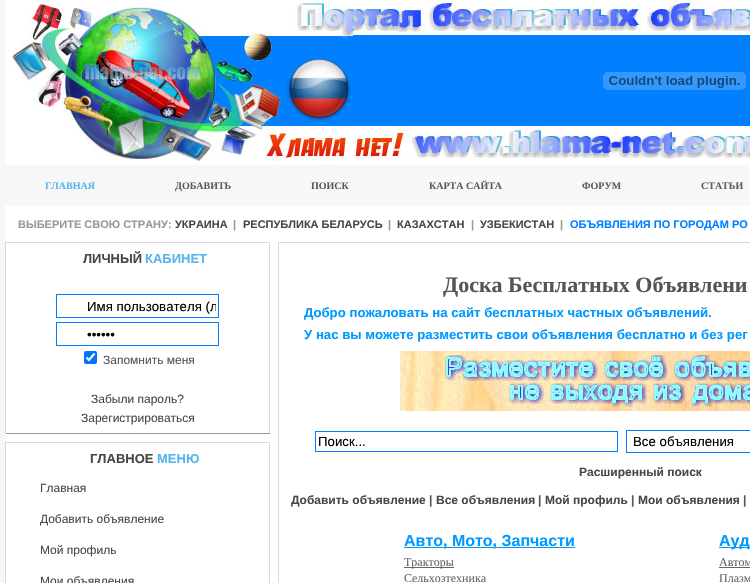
#include "include/core/SkBlurTypes.h"
#include "include/core/SkCanvas.h"
#include "include/core/SkData.h"
#include "include/core/SkFont.h"
#include "include/core/SkFontMgr.h"
#include "include/core/SkImage.h"
#include "include/core/SkMaskFilter.h"
#include "include/core/SkPaint.h"
#include "include/core/SkPathBuilder.h"
#include "include/core/SkTextBlob.h"
#include "include/effects/SkDashPathEffect.h"
#include "include/effects/SkGradientShader.h"
#include "include/utils/SkParsePath.h"

extern sk_sp<SkFontMgr> fontMgr;

void draw(SkCanvas* canvas) {
  SkPaint p;
  p.setAntiAlias(true);
  canvas->clear(SkColorSetRGB(246, 247, 247));
  canvas->drawImageRect(SkImages::DeferredFromEncodedData(SkData::MakeFromFileName("images/1.png")), SkRect::MakeLTRB(5, 0, 185, 81), SkSamplingOptions());
  canvas->drawImageRect(SkImages::DeferredFromEncodedData(SkData::MakeFromFileName("images/2.png")), SkRect::MakeLTRB(185, 0, 353, 81), SkSamplingOptions());
  canvas->drawImageRect(SkImages::DeferredFromEncodedData(SkData::MakeFromFileName("images/3.png")), SkRect::MakeLTRB(353, 0, 750, 35), SkSamplingOptions());
  canvas->drawImageRect(SkImages::DeferredFromEncodedData(SkData::MakeFromFileName("images/4.png")), SkRect::MakeLTRB(5, 81, 185, 165), SkSamplingOptions());
  canvas->drawImageRect(SkImages::DeferredFromEncodedData(SkData::MakeFromFileName("images/5.png")), SkRect::MakeLTRB(185, 81, 353, 165), SkSamplingOptions());
  p.setColor(SkColorSetRGB(0, 128, 255));
  canvas->drawRect(SkRect::MakeLTRB(353, 35, 750, 126), p);
  canvas->drawImageRect(SkImages::DeferredFromEncodedData(SkData::MakeFromFileName("images/6.png")), SkRect::MakeLTRB(603, 72, 746, 90), SkSamplingOptions());
  canvas->drawImageRect(SkImages::DeferredFromEncodedData(SkData::MakeFromFileName("images/7.png")), SkRect::MakeLTRB(353, 126, 750, 165), SkSamplingOptions());
  p.setColor(SK_ColorWHITE);
  canvas->drawRect(SkRect::MakeLTRB(5, 206, 750, 583), p);
  p.setColor(SkColorSetRGB(216, 216, 216));
  canvas->drawRect(SkRect::MakeLTRB(5, 242, 270, 243), p);
  canvas->drawRect(SkRect::MakeLTRB(269, 242, 270, 434), p);
  canvas->drawRect(SkRect::MakeLTRB(5, 242, 6, 268), p);
  p.setColor(SkColorSetRGB(153, 153, 153));
  canvas->drawRect(SkRect::MakeLTRB(5, 433, 270, 434), p);
  p.setColor(SkColorSetRGB(216, 216, 216));
  canvas->drawRect(SkRect::MakeLTRB(5, 268, 6, 434), p);
  p.setStyle(SkPaint::kStroke_Style);
  p.setStrokeWidth(1);
  p.setColor(SkColorSetRGB(0, 128, 255));
  canvas->drawRect(SkRect::MakeLTRB(56.5f, 294.5f, 218.5f, 317.5f), p);
  canvas->drawRect(SkRect::MakeLTRB(56.5f, 322.5f, 218.5f, 345.5f), p);
  p.setStyle(SkPaint::kFill_Style);
  p.setColor(SkColorSetRGB(0, 117, 255));
  canvas->drawRoundRect(SkRect::MakeLTRB(84, 351, 97, 364), 2, 2, p);
  p.setStyle(SkPaint::kStroke_Style);
  p.setStrokeWidth(2.1f);
  p.setColor(SK_ColorWHITE);
  canvas->drawPath(SkPathBuilder().moveTo(86.5f, 357.5f).lineTo(89, 360).lineTo(94.5f, 353.5f).detach(), p);
  p.setStyle(SkPaint::kFill_Style);
  p.setColor(SkColorSetRGB(216, 216, 216));
  canvas->drawRect(SkRect::MakeLTRB(5, 442, 270, 443), p);
  canvas->drawRect(SkRect::MakeLTRB(269, 442, 270, 583), p);
  canvas->drawRect(SkRect::MakeLTRB(5, 442, 6, 583), p);
  p.setStyle(SkPaint::kStroke_Style);
  p.setStrokeWidth(1);
  canvas->drawRect(SkRect::MakeLTRB(278.5f, 242.5f, 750.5f, 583.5f), p);
  canvas->drawImageRect(SkImages::DeferredFromEncodedData(SkData::MakeFromFileName("images/8.png")), SkRect::MakeLTRB(400, 351, 750, 411), SkSamplingOptions());
  p.setColor(SkColorSetRGB(0, 128, 255));
  canvas->drawRect(SkRect::MakeLTRB(315.5f, 431.5f, 617.5f, 451.5f), p);
  canvas->drawRect(SkRect::MakeLTRB(626.5f, 430.5f, 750.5f, 452.5f), p);
  p.setStyle(SkPaint::kFill_Style);
  p.setColor(SkColorSetRGB(0, 153, 255));
  canvas->drawRect(SkRect::MakeLTRB(404, 547, 575, 548), p);
  p.setColor(SkColorSetRGB(102, 102, 102));
  canvas->drawRect(SkRect::MakeLTRB(404, 567, 454, 568), p);
  p.setColor(SkColorSetRGB(0, 153, 255));
  canvas->drawRect(SkRect::MakeLTRB(719, 547, 750, 548), p);
  p.setColor(SkColorSetRGB(102, 102, 102));
  canvas->drawRect(SkRect::MakeLTRB(719, 567, 750, 568), p);
  SkFont font1(fontMgr->matchFamilyStyle("Liberation Serif", SkFontStyle::Bold()), 10);
  font1.setSubpixel(true);
  p.setColor(SkColorSetRGB(89, 181, 235));
  canvas->drawString("ГЛАВНАЯ", 45, 189, font1, p);
  p.setColor(SkColorSetRGB(91, 91, 91));
  canvas->drawString("ДОБАВИТЬ", 175, 189, font1, p);
  canvas->drawString("ПОИСК", 311, 189, font1, p);
  canvas->drawString("КАРТА САЙТА", 429, 189, font1, p);
  canvas->drawString("ФОРУМ", 582, 189, font1, p);
  canvas->drawString("СТАТЬИ", 701, 189, font1, p);
  SkFont font2(fontMgr->matchFamilyStyle("Liberation Sans", SkFontStyle::Bold()), 11);
  font2.setSubpixel(true);
  p.setColor(SkColorSetRGB(153, 153, 153));
  canvas->drawString("ВЫБЕРИТЕ СВОЮ СТРАНУ:", 18, 228, font2, p);
  p.setColor(SkColorSetRGB(72, 72, 72));
  canvas->drawString("УКРАИНА", 175, 228, font2, p);
  p.setColor(SkColorSetRGB(153, 153, 153));
  canvas->drawString("|", 233, 228, font2, p);
  p.setColor(SkColorSetRGB(72, 72, 72));
  canvas->drawString("РЕСПУБЛИКА БЕЛАРУСЬ", 243, 228, font2, p);
  p.setColor(SkColorSetRGB(153, 153, 153));
  canvas->drawString("|", 388, 228, font2, p);
  p.setColor(SkColorSetRGB(72, 72, 72));
  canvas->drawString("КАЗАХСТАН", 397, 228, font2, p);
  p.setColor(SkColorSetRGB(153, 153, 153));
  canvas->drawString("|", 471, 228, font2, p);
  p.setColor(SkColorSetRGB(72, 72, 72));
  canvas->drawString("УЗБЕКИСТАН", 480, 228, font2, p);
  p.setColor(SkColorSetRGB(153, 153, 153));
  canvas->drawString("|", 560, 228, font2, p);
  p.setColor(SkColorSetRGB(0, 128, 255));
  canvas->drawString("ОБЪЯВЛЕНИЯ ПО ГОРОДАМ РО", 570, 228, font2, p);
  SkFont font3(fontMgr->matchFamilyStyle("Liberation Sans", SkFontStyle::Bold()), 13);
  font3.setSubpixel(true);
  p.setColor(SkColorSetRGB(72, 72, 72));
  canvas->drawString("ЛИЧНЫЙ", 83, 263, font3, p);
  p.setColor(SkColorSetRGB(89, 181, 235));
  canvas->drawString("КАБИНЕТ", 145, 263, font3, p);
  canvas->save();
  canvas->clipRect(SkRect::MakeLTRB(87, 299, 216, 314));
  SkFont font4(fontMgr->matchFamilyStyle("Liberation Sans", SkFontStyle::Normal()), 13.25f);
  font4.setSubpixel(true);
  p.setColor(SK_ColorBLACK);
  canvas->drawString("Имя пользователя (л", 87, 311, font4, p);
  canvas->restore();
  canvas->drawString("••••••", 87, 339, font4, p);
  SkFont font5(fontMgr->matchFamilyStyle("Liberation Sans", SkFontStyle::Normal()), 12);
  font5.setSubpixel(true);
  p.setColor(SkColorSetRGB(85, 85, 85));
  canvas->drawString("Запомнить меня", 103, 364, font5, p);
  p.setColor(SkColorSetRGB(72, 72, 72));
  canvas->drawString("Забыли пароль?", 91, 403, font5, p);
  canvas->drawString("Зарегистрироваться", 81, 422, font5, p);
  canvas->drawString("ГЛАВНОЕ", 90, 463, font3, p);
  p.setColor(SkColorSetRGB(89, 181, 235));
  canvas->drawString("МЕНЮ", 157, 463, font3, p);
  p.setColor(SkColorSetRGB(72, 72, 72));
  canvas->drawString("Главная", 40, 492, font5, p);
  canvas->drawString("Добавить объявление", 40, 523, font5, p);
  canvas->drawString("Мой профиль", 40, 554, font5, p);
  canvas->drawString("Мои объявления", 40, 585, font5, p);
  SkFont font6(fontMgr->matchFamilyStyle("Liberation Serif", SkFontStyle::Bold()), 22);
  font6.setSubpixel(true);
  p.setColor(SkColorSetRGB(85, 85, 85));
  canvas->drawString("Доска Бесплатных Объявлени", 443, 292, font6, p);
  SkFont font7(fontMgr->matchFamilyStyle("Liberation Sans", SkFontStyle::Bold()), 13.2f);
  font7.setSubpixel(true);
  p.setColor(SkColorSetRGB(0, 153, 255));
  canvas->drawString("Добро пожаловать на сайт бесплатных частных объявлений.", 304, 317, font7, p);
  canvas->drawString("У нас вы можете разместить свои объявления бесплатно и без рег", 304, 339, font7, p);
  p.setColor(SK_ColorBLACK);
  canvas->drawString("Поиск...", 318, 446, font4, p);
  canvas->drawString("Все объявления", 633, 446, font4, p);
  SkFont font8(fontMgr->matchFamilyStyle("Liberation Sans", SkFontStyle::Bold()), 12);
  font8.setSubpixel(true);
  p.setColor(SkColorSetRGB(72, 72, 72));
  canvas->drawString("Расширенный поиск", 579, 476, font8, p);
  canvas->drawString("Добавить объявление", 291, 504, font8, p);
  p.setColor(SkColorSetRGB(85, 85, 85));
  canvas->drawString("|", 429, 504, font8, p);
  p.setColor(SkColorSetRGB(72, 72, 72));
  canvas->drawString("Все объявления", 436, 504, font8, p);
  p.setColor(SkColorSetRGB(85, 85, 85));
  canvas->drawString("|", 538, 504, font8, p);
  p.setColor(SkColorSetRGB(72, 72, 72));
  canvas->drawString("Мой профиль", 545, 504, font8, p);
  p.setColor(SkColorSetRGB(85, 85, 85));
  canvas->drawString("|", 631, 504, font8, p);
  p.setColor(SkColorSetRGB(72, 72, 72));
  canvas->drawString("Мои объявления", 638, 504, font8, p);
  p.setColor(SkColorSetRGB(85, 85, 85));
  canvas->drawString("|", 743, 504, font8, p);
  SkFont font9(fontMgr->matchFamilyStyle("Liberation Sans", SkFontStyle::Bold()), 16);
  font9.setSubpixel(true);
  p.setColor(SkColorSetRGB(0, 153, 255));
  canvas->drawString("Авто, Мото, Запчасти", 404, 546, font9, p);
  SkFont font10(fontMgr->matchFamilyStyle("Liberation Serif", SkFontStyle::Normal()), 12);
  font10.setSubpixel(true);
  p.setColor(SkColorSetRGB(102, 102, 102));
  canvas->drawString("Тракторы", 404, 566, font10, p);
  canvas->drawString("Сельхозтехника", 404, 582, font10, p);
  p.setColor(SkColorSetRGB(0, 153, 255));
  canvas->drawString("Ауд", 719, 546, font9, p);
  p.setColor(SkColorSetRGB(102, 102, 102));
  canvas->drawString("Автом", 719, 566, font10, p);
  canvas->drawString("Плазм", 719, 582, font10, p);
}
